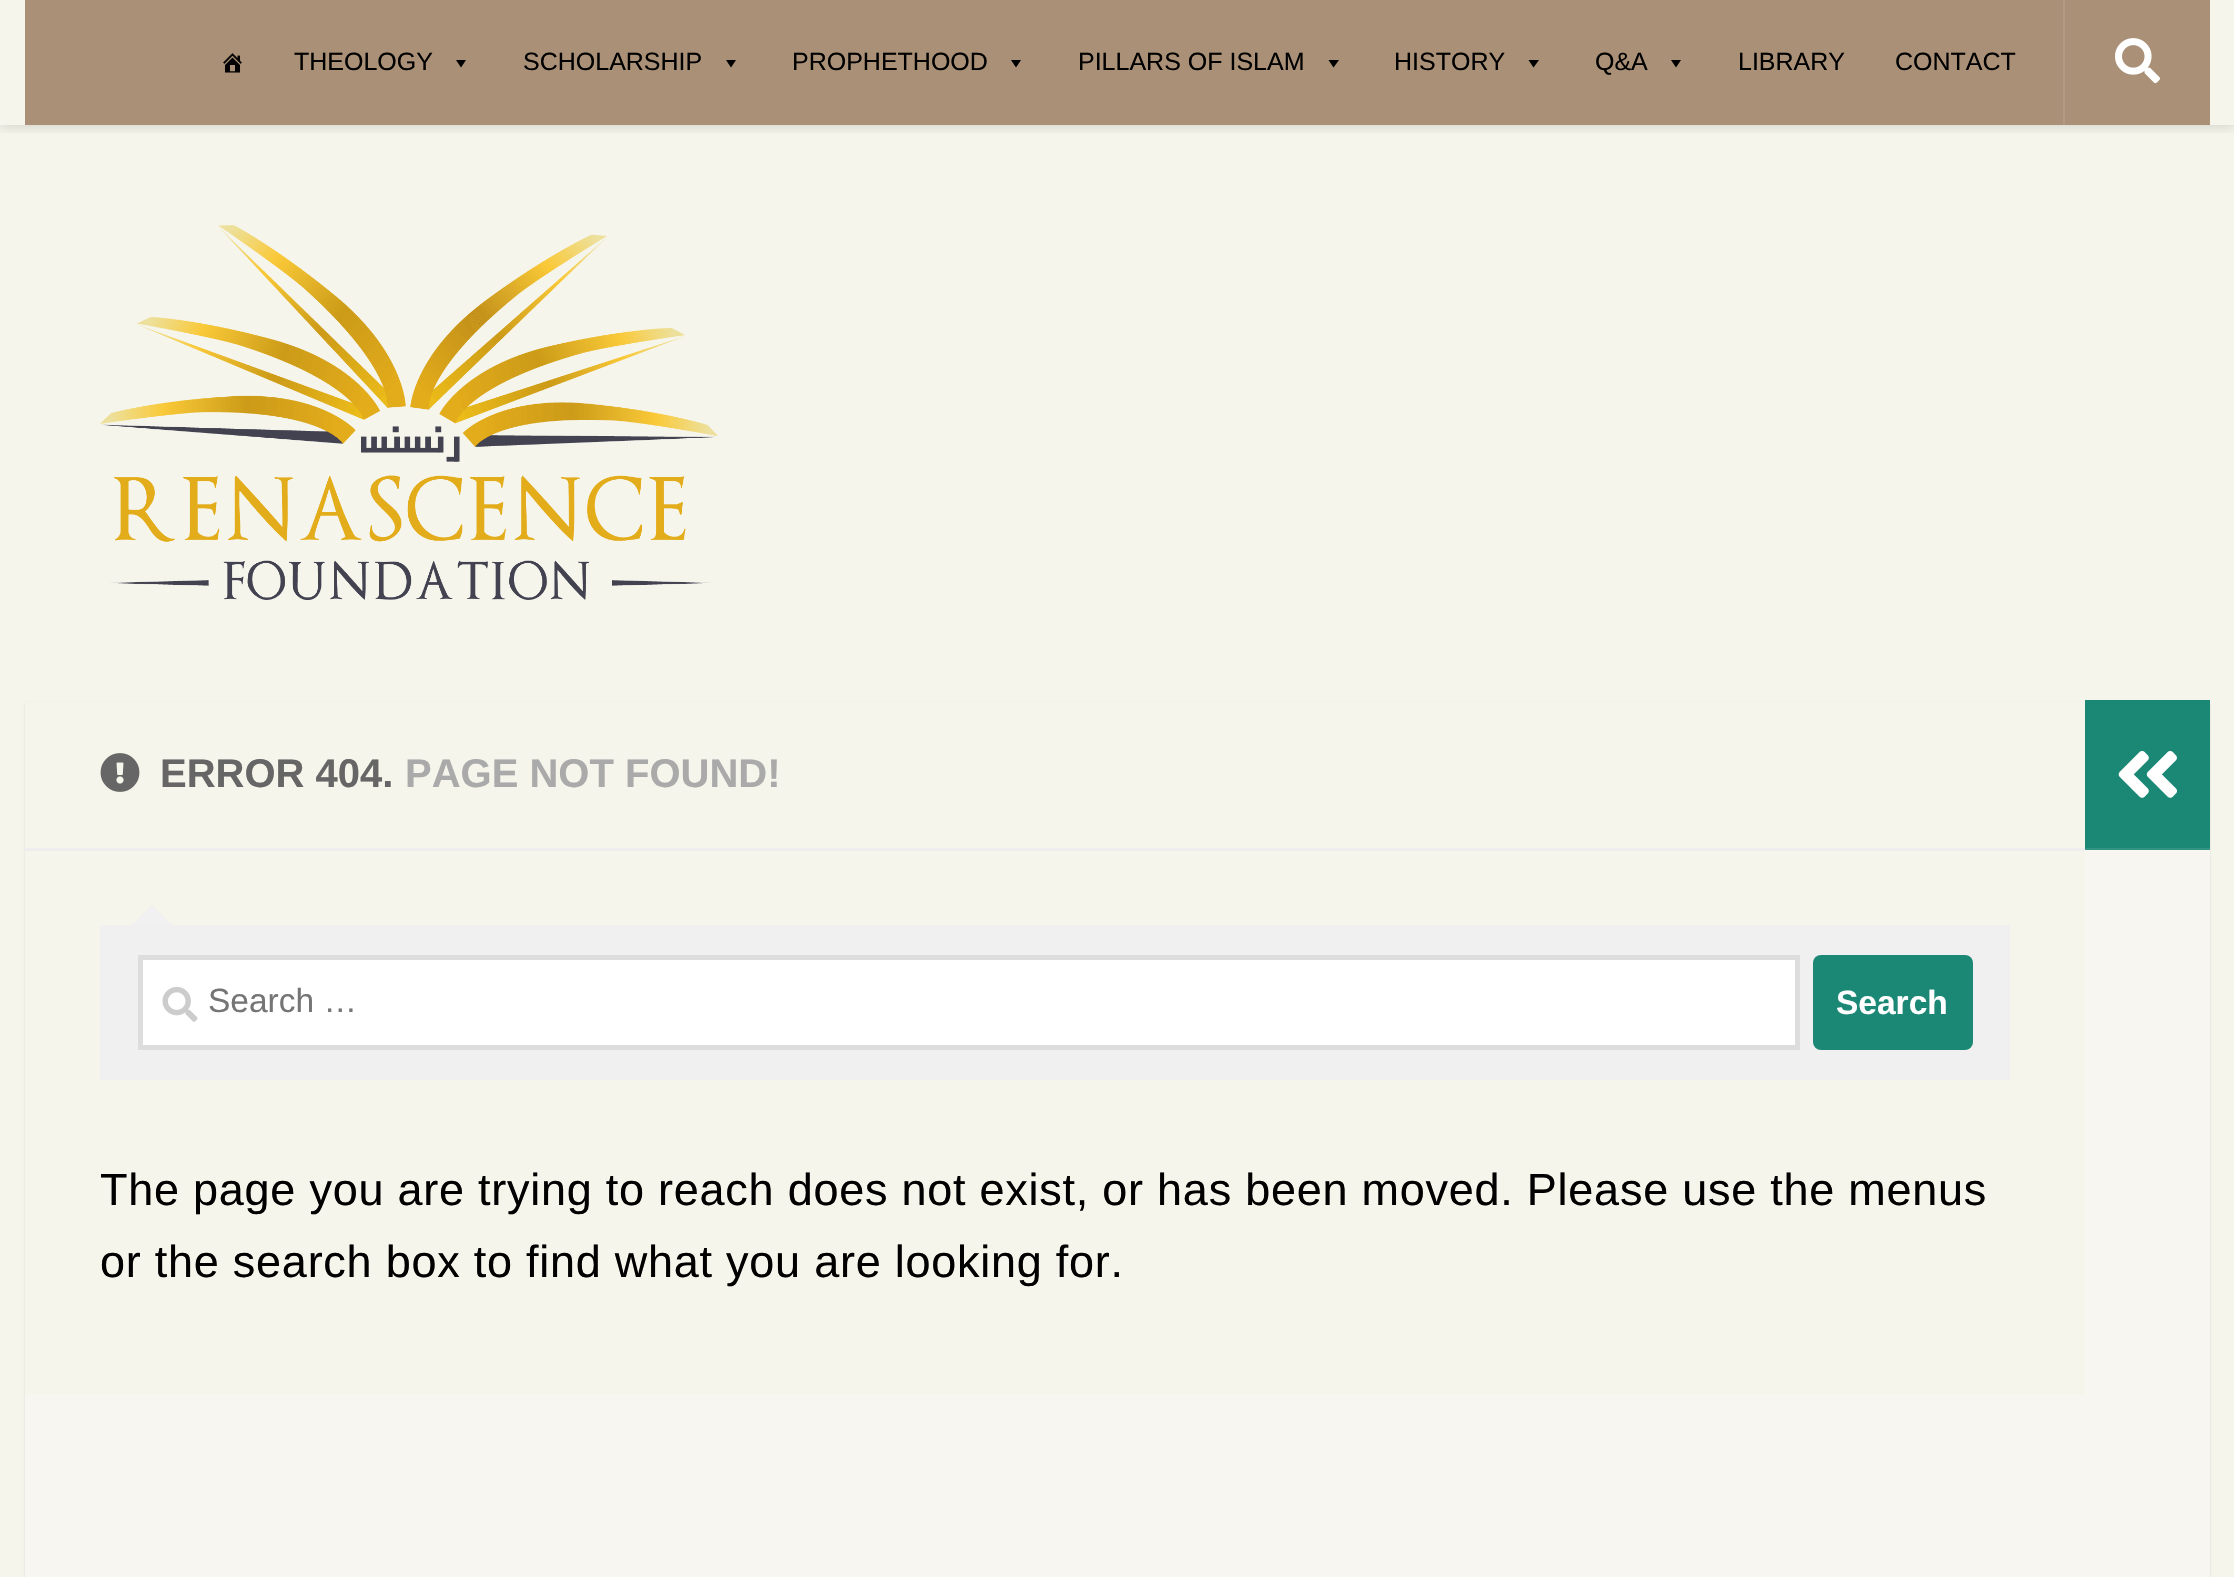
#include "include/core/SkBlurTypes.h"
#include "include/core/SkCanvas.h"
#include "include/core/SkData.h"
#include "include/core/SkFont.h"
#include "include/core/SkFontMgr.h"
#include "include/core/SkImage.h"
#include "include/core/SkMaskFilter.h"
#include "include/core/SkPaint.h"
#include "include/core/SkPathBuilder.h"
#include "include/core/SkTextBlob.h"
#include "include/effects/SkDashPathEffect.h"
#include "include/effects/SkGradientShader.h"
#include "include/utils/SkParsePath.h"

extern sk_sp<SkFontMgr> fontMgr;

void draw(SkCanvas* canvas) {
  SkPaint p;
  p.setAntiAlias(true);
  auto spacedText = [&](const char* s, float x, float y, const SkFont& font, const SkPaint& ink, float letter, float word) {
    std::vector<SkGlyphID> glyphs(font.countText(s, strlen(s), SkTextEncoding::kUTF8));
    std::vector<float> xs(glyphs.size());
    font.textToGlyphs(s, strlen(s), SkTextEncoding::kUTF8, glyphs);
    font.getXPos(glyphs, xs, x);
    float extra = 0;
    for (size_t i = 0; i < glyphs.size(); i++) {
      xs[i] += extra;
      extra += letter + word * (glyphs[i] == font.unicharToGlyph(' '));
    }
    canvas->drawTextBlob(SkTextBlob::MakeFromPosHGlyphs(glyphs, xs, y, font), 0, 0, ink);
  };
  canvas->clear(SkColorSetRGB(246, 245, 235));
  p.setColor(SkColorSetRGB(247, 247, 238));
  canvas->drawRect(SkRect::MakeLTRB(0, 125, 2234, 128), p);
  canvas->save();
  canvas->clipRect(SkRect::MakeLTRB(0, 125, 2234, 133));
  p.setColor(SkColorSetARGB(51, 0, 0, 0));
  p.setMaskFilter(SkMaskFilter::MakeBlur(kNormal_SkBlurStyle, 6));
  canvas->drawRect(SkRect::MakeLTRB(0, 0, 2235, 125), p);
  p.setMaskFilter(nullptr);
  canvas->restore();
  p.setColor(SkColorSetRGB(169, 144, 118));
  canvas->drawRect(SkRect::MakeLTRB(25, 0, 2210, 125), p);
  canvas->drawImageRect(SkImages::DeferredFromEncodedData(SkData::MakeFromFileName("images/1.png")), SkRect::MakeLTRB(223, 53, 242, 73), SkSamplingOptions());
  p.setColor(SK_ColorBLACK);
  canvas->drawPath(SkPathBuilder().moveTo(466, 60).lineTo(461, 67.5f).lineTo(456, 60).close().detach(), p);
  canvas->drawPath(SkPathBuilder().moveTo(736, 60).lineTo(731, 67.5f).lineTo(726, 60).close().detach(), p);
  canvas->drawPath(SkPathBuilder().moveTo(1021, 60).lineTo(1016, 67.5f).lineTo(1011, 60).close().detach(), p);
  canvas->drawPath(SkPathBuilder().moveTo(1339, 60).lineTo(1333.5f, 67.5f).lineTo(1328.5f, 60).close().detach(), p);
  canvas->drawPath(SkPathBuilder().moveTo(1539, 60).lineTo(1533.5f, 67.5f).lineTo(1528.5f, 60).close().detach(), p);
  canvas->drawPath(SkPathBuilder().moveTo(1681, 60).lineTo(1676, 67.5f).lineTo(1671, 60).close().detach(), p);
  p.setColor(SkColorSetRGB(178, 155, 132));
  canvas->drawRect(SkRect::MakeLTRB(2063, 0, 2065, 125), p);
  canvas->drawImageRect(SkImages::DeferredFromEncodedData(SkData::MakeFromFileName("images/2.png")), SkRect::MakeLTRB(2115, 38, 2160, 84), SkSamplingOptions());
  canvas->drawImageRect(SkImages::DeferredFromEncodedData(SkData::MakeFromFileName("images/3.png")), SkRect::MakeLTRB(100, 225, 718, 600), SkSamplingOptions());
  p.setColor(SkColorSetARGB(26, 0, 0, 0));
  p.setMaskFilter(SkMaskFilter::MakeBlur(kNormal_SkBlurStyle, 1));
  canvas->drawRect(SkRect::MakeLTRB(25, 703, 2210, 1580), p);
  p.setMaskFilter(nullptr);
  p.setColor(SkColorSetRGB(248, 246, 241));
  canvas->drawRect(SkRect::MakeLTRB(25, 851, 2210, 1577), p);
  p.setColor(SkColorSetRGB(249, 247, 242));
  canvas->drawRect(SkRect::MakeLTRB(2085, 850, 2210, 851), p);
  p.setColor(SkColorSetRGB(246, 245, 235));
  canvas->drawRect(SkRect::MakeLTRB(25, 702, 2085, 848), p);
  p.setColor(SkColorSetRGB(238, 238, 238));
  canvas->drawRect(SkRect::MakeLTRB(25, 848, 2085, 851), p);
  canvas->drawImageRect(SkImages::DeferredFromEncodedData(SkData::MakeFromFileName("images/4.png")), SkRect::MakeLTRB(100, 753, 140, 792), SkSamplingOptions());
  p.setColor(SkColorSetRGB(246, 245, 235));
  canvas->drawRect(SkRect::MakeLTRB(25, 851, 2085, 1395), p);
  p.setColor(SkColorSetRGB(240, 240, 240));
  canvas->drawRect(SkRect::MakeLTRB(100, 925, 2010, 1080), p);
  p.setColor(SkColorSetRGB(241, 241, 241));
  canvas->drawPath(SkPathBuilder().moveTo(172, 925).lineTo(132, 925).lineTo(152, 905).close().detach(), p);
  p.setColor(SK_ColorWHITE);
  canvas->drawRect(SkRect::MakeLTRB(140.5f, 957.5f, 1797.5f, 1047.5f), p);
  p.setStyle(SkPaint::kStroke_Style);
  p.setStrokeWidth(5);
  p.setColor(SkColorSetRGB(221, 221, 221));
  canvas->drawRect(SkRect::MakeLTRB(140.5f, 957.5f, 1797.5f, 1047.5f), p);
  canvas->drawImageRect(SkImages::DeferredFromEncodedData(SkData::MakeFromFileName("images/5.png")), SkRect::MakeLTRB(162, 986, 198, 1022), SkSamplingOptions());
  p.setStyle(SkPaint::kFill_Style);
  p.setColor(SkColorSetRGB(27, 135, 117));
  canvas->drawRoundRect(SkRect::MakeLTRB(1813, 955, 1973, 1050), 8, 8, p);
  canvas->drawRect(SkRect::MakeLTRB(2085, 700, 2210, 848), p);
  p.setColor(SkColorSetRGB(50, 147, 131));
  canvas->drawRect(SkRect::MakeLTRB(2085, 848, 2210, 850), p);
  canvas->drawImageRect(SkImages::DeferredFromEncodedData(SkData::MakeFromFileName("images/6.png")), SkRect::MakeLTRB(2118, 751, 2177, 798), SkSamplingOptions());
  SkFont font1(fontMgr->matchFamilyStyle("Liberation Sans", SkFontStyle::Normal()), 25);
  font1.setSubpixel(true);
  p.setColor(SK_ColorBLACK);
  canvas->drawString("THEOLOGY", 294, 70, font1, p);
  canvas->drawString("SCHOLARSHIP", 523, 70, font1, p);
  canvas->drawString("PROPHETHOOD", 792, 70, font1, p);
  canvas->drawString("PILLARS OF ISLAM", 1078, 70, font1, p);
  canvas->drawString("HISTORY", 1394, 70, font1, p);
  canvas->drawString("Q&A", 1595, 70, font1, p);
  canvas->drawString("LIBRARY", 1738, 70, font1, p);
  canvas->drawString("CONTACT", 1895, 70, font1, p);
  SkFont font2(fontMgr->matchFamilyStyle("Liberation Sans", SkFontStyle::Bold()), 40);
  font2.setSubpixel(true);
  p.setColor(SkColorSetRGB(102, 102, 102));
  canvas->drawString("ERROR 404.", 160, 787, font2, p);
  p.setColor(SkColorSetRGB(170, 170, 170));
  canvas->drawString("PAGE NOT FOUND!", 405, 787, font2, p);
  SkFont font3(fontMgr->matchFamilyStyle("Liberation Sans", SkFontStyle::Normal()), 33.5f);
  font3.setSubpixel(true);
  p.setColor(SkColorSetRGB(117, 117, 117));
  canvas->drawString("Search …", 208, 1012, font3, p);
  SkFont font4(fontMgr->matchFamilyStyle("Liberation Sans", SkFontStyle::Bold()), 33.5f);
  font4.setSubpixel(true);
  p.setColor(SK_ColorWHITE);
  canvas->drawString("Search", 1836, 1014, font4, p);
  SkFont font5(fontMgr->matchFamilyStyle("Liberation Sans", SkFontStyle::Normal()), 45);
  font5.setSubpixel(true);
  p.setColor(SK_ColorBLACK);
  spacedText("The page you are trying to reach does not exist, or has been moved. Please use the menus", 100, 1205, font5, p, 0.75f, 0);
  spacedText("or the search box to find what you are looking for.", 100, 1277, font5, p, 0.75f, 0);
}
